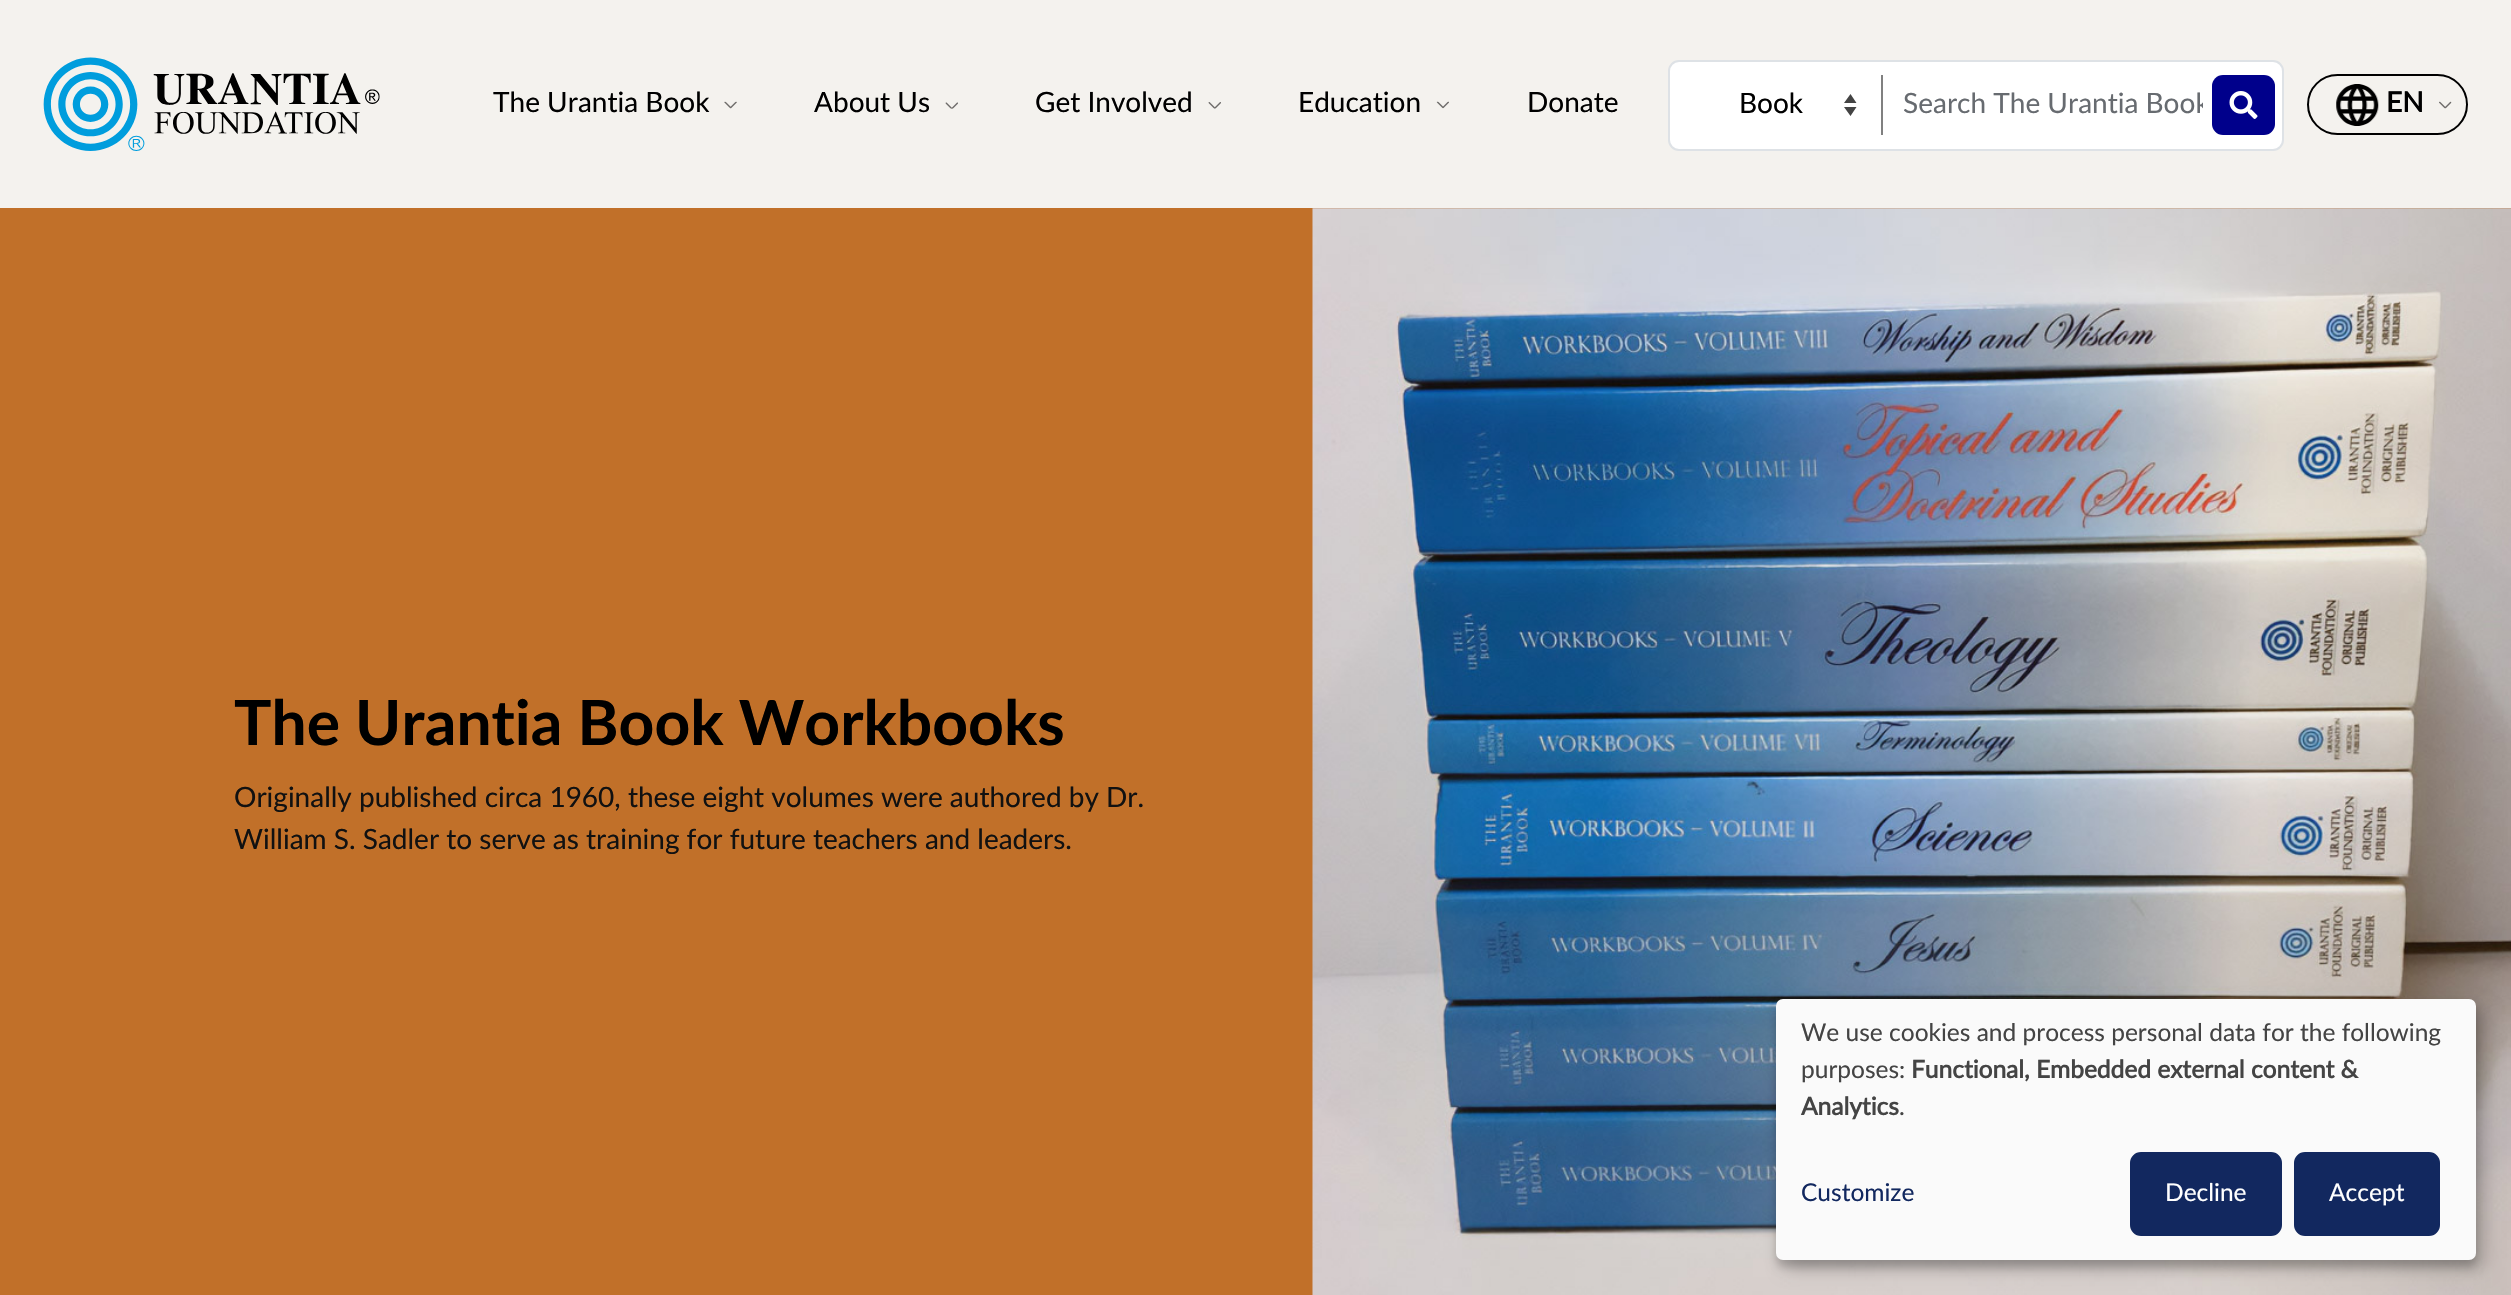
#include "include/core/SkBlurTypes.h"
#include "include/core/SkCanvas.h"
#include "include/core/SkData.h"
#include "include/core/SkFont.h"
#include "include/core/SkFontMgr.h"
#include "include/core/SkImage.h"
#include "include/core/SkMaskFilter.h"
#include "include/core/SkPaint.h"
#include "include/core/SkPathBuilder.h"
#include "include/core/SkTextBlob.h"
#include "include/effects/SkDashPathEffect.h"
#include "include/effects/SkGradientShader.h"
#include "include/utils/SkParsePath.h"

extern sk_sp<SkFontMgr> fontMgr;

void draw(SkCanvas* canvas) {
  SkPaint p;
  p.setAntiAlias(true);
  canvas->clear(SkColorSetRGB(193, 112, 41));
  p.setColor(SkColorSetRGB(244, 242, 238));
  canvas->drawRect(SkRect::MakeLTRB(0, 0, 2511, 208), p);
  canvas->drawImageRect(SkImages::DeferredFromEncodedData(SkData::MakeFromFileName("images/1.png")), SkRect::MakeLTRB(43, 57, 380, 151), SkSamplingOptions());
  canvas->drawImageRect(SkImages::DeferredFromEncodedData(SkData::MakeFromFileName("images/2.png")), SkRect::MakeLTRB(724, 101, 737, 109), SkSamplingOptions());
  canvas->drawImageRect(SkImages::DeferredFromEncodedData(SkData::MakeFromFileName("images/3.png")), SkRect::MakeLTRB(945, 102, 958, 109), SkSamplingOptions());
  canvas->drawImageRect(SkImages::DeferredFromEncodedData(SkData::MakeFromFileName("images/4.png")), SkRect::MakeLTRB(1208, 102, 1221, 109), SkSamplingOptions());
  canvas->drawImageRect(SkImages::DeferredFromEncodedData(SkData::MakeFromFileName("images/5.png")), SkRect::MakeLTRB(1436, 101, 1449, 109), SkSamplingOptions());
  p.setColor(SK_ColorWHITE);
  canvas->drawRoundRect(SkRect::MakeLTRB(1669, 61, 2283, 150), 10, 10, p);
  p.setStyle(SkPaint::kStroke_Style);
  p.setStrokeWidth(2);
  p.setColor(SkColorSetRGB(222, 226, 230));
  canvas->drawRoundRect(SkRect::MakeLTRB(1669, 61, 2283, 150), 10, 10, p);
  p.setStyle(SkPaint::kFill_Style);
  p.setColor(SkColorSetRGB(68, 68, 68));
  canvas->drawPath(SkPathBuilder().moveTo(1844, 103).lineTo(1850.5f, 94).lineTo(1856.5f, 103).close().moveTo(1856.5f, 107).lineTo(1850.5f, 116).lineTo(1844, 107).close().detach(), p);
  p.setColor(SkColorSetRGB(128, 128, 128));
  canvas->drawRect(SkRect::MakeLTRB(1881, 75, 1883, 135), p);
  p.setColor(SkColorSetRGB(0, 0, 139));
  canvas->drawRoundRect(SkRect::MakeLTRB(2212, 75, 2275, 135), 11, 11, p);
  canvas->drawImageRect(SkImages::DeferredFromEncodedData(SkData::MakeFromFileName("images/6.png")), SkRect::MakeLTRB(2229, 91, 2258, 119), SkSamplingOptions());
  p.setStyle(SkPaint::kStroke_Style);
  p.setColor(SK_ColorBLACK);
  canvas->drawRoundRect(SkRect::MakeLTRB(2308, 75, 2467, 134), 29.5f, 29.5f, p);
  canvas->drawImageRect(SkImages::DeferredFromEncodedData(SkData::MakeFromFileName("images/7.png")), SkRect::MakeLTRB(2336, 84, 2379, 126), SkSamplingOptions());
  canvas->drawImageRect(SkImages::DeferredFromEncodedData(SkData::MakeFromFileName("images/8.png")), SkRect::MakeLTRB(2439, 101, 2452, 109), SkSamplingOptions());
  canvas->drawImageRect(SkImages::DeferredFromEncodedData(SkData::MakeFromFileName("images/9.png")), SkRect::MakeLTRB(1312, 208, 2511, 1295), SkSamplingOptions());
  p.setStyle(SkPaint::kFill_Style);
  p.setColor(SkColorSetARGB(48, 0, 0, 0));
  p.setMaskFilter(SkMaskFilter::MakeBlur(kNormal_SkBlurStyle, 9));
  canvas->drawRoundRect(SkRect::MakeLTRB(1785, 1008, 2485, 1269), 7, 7, p);
  p.setMaskFilter(nullptr);
  p.setColor(SkColorSetARGB(51, 0, 0, 0));
  p.setMaskFilter(SkMaskFilter::MakeBlur(kNormal_SkBlurStyle, 5));
  canvas->drawRoundRect(SkRect::MakeLTRB(1776, 1006, 2476, 1267), 7, 7, p);
  p.setMaskFilter(nullptr);
  p.setColor(SkColorSetRGB(250, 250, 250));
  canvas->drawRoundRect(SkRect::MakeLTRB(1776, 999, 2476, 1260), 7, 7, p);
  p.setColor(SkColorSetRGB(18, 40, 95));
  canvas->drawRoundRect(SkRect::MakeLTRB(2132.5f, 1154.5f, 2279.5f, 1233.5f), 8.5f, 8.5f, p);
  p.setStyle(SkPaint::kStroke_Style);
  p.setStrokeWidth(5);
  canvas->drawRoundRect(SkRect::MakeLTRB(2132.5f, 1154.5f, 2279.5f, 1233.5f), 8.5f, 8.5f, p);
  p.setStyle(SkPaint::kFill_Style);
  canvas->drawRoundRect(SkRect::MakeLTRB(2296.5f, 1154.5f, 2437.5f, 1233.5f), 8.5f, 8.5f, p);
  p.setStyle(SkPaint::kStroke_Style);
  canvas->drawRoundRect(SkRect::MakeLTRB(2296.5f, 1154.5f, 2437.5f, 1233.5f), 8.5f, 8.5f, p);
  SkFont font1(fontMgr->matchFamilyStyle("Lato", SkFontStyle::Normal()), 28);
  font1.setSubpixel(true);
  p.setStyle(SkPaint::kFill_Style);
  p.setColor(SK_ColorBLACK);
  canvas->drawString("The Urantia Book", 493, 112, font1, p);
  canvas->drawString("About Us", 814, 112, font1, p);
  canvas->drawString("Get Involved", 1035, 112, font1, p);
  canvas->drawString("Education", 1298, 112, font1, p);
  canvas->drawString("Donate", 1527, 112, font1, p);
  canvas->drawString("Book", 1739, 113, font1, p);
  canvas->save();
  canvas->clipRect(SkRect::MakeLTRB(1904, 89, 2203, 123));
  p.setColor(SkColorSetRGB(103, 107, 112));
  canvas->drawString("Search The Urantia Book", 1903, 113, font1, p);
  canvas->restore();
  SkFont font2(fontMgr->matchFamilyStyle("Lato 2", SkFontStyle::Bold()), 28);
  font2.setSubpixel(true);
  p.setColor(SK_ColorBLACK);
  canvas->drawString("EN", 2386, 112, font2, p);
  SkFont font3(fontMgr->matchFamilyStyle("Lato", SkFontStyle::Bold()), 62.4f);
  font3.setSubpixel(true);
  canvas->drawString("The Urantia Book Workbooks", 234, 745, font3, p);
  p.setColor(SkColorSetRGB(17, 17, 17));
  canvas->drawString("Originally published circa 1960, these eight volumes were authored by Dr.", 234, 807, font1, p);
  canvas->drawString("William S. Sadler to serve as training for future teachers and leaders.", 234, 849, font1, p);
  SkFont font4(fontMgr->matchFamilyStyle("Lato", SkFontStyle::Normal()), 24.5f);
  font4.setSubpixel(true);
  p.setColor(SkColorSetRGB(68, 68, 68));
  canvas->drawString("We use cookies and process personal data for the following", 1801, 1041, font4, p);
  canvas->drawString("purposes:", 1801, 1078, font4, p);
  SkFont font5(fontMgr->matchFamilyStyle("Lato 2", SkFontStyle::Bold()), 24.5f);
  font5.setSubpixel(true);
  canvas->drawString("Functional, Embedded external content &", 1911, 1078, font5, p);
  canvas->drawString("Analytics", 1801, 1115, font5, p);
  canvas->drawString(".", 1899, 1115, font4, p);
  p.setColor(SkColorSetRGB(18, 40, 95));
  canvas->drawString("Customize", 1801, 1201, font4, p);
  p.setColor(SK_ColorWHITE);
  canvas->drawString("Decline", 2165, 1201, font4, p);
  canvas->drawString("Accept", 2329, 1201, font4, p);
}
